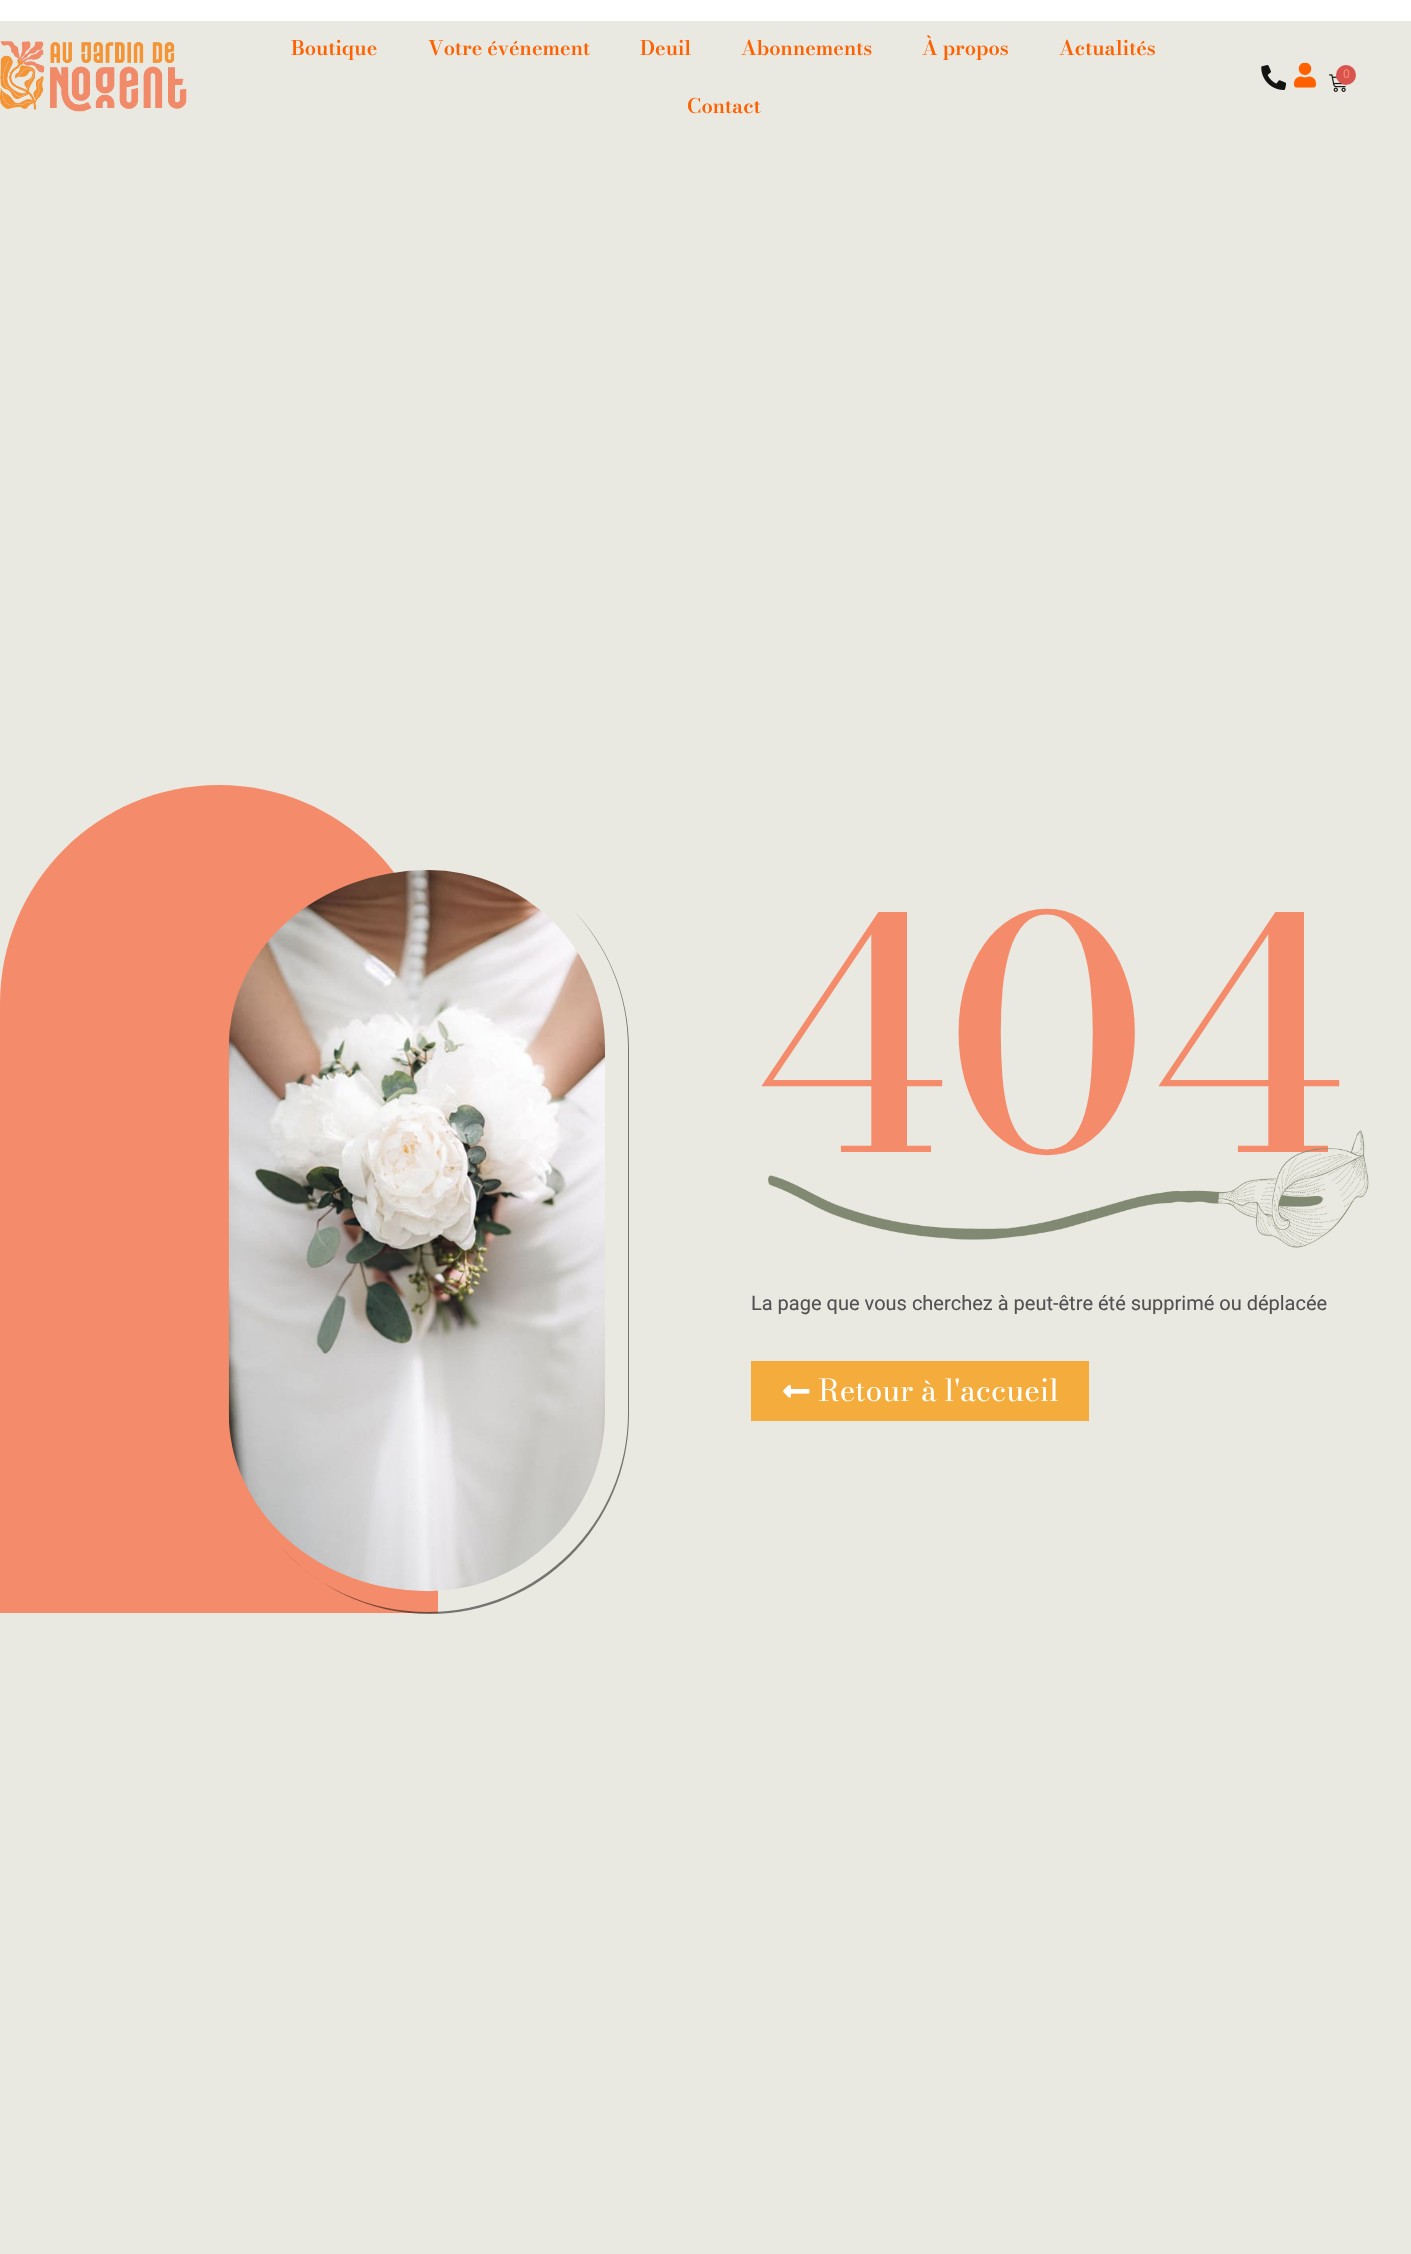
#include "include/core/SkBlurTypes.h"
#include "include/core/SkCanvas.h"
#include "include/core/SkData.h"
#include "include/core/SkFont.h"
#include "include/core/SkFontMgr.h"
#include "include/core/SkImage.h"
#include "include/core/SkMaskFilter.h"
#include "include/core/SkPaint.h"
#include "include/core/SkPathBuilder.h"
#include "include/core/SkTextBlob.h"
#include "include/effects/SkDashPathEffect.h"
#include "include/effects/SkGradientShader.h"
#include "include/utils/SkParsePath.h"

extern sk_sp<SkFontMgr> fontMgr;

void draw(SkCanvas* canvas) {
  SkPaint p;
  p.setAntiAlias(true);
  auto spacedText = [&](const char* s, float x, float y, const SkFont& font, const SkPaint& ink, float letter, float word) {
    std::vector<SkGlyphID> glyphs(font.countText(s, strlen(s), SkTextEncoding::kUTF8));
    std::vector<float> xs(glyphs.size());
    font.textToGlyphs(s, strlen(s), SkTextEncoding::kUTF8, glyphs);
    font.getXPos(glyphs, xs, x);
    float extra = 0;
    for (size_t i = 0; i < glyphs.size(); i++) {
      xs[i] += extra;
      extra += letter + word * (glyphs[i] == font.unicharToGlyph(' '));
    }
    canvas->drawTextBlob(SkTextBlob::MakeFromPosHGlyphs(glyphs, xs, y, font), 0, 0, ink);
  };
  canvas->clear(SK_ColorWHITE);
  p.setColor(SkColorSetRGB(234, 233, 225));
  canvas->drawRect(SkRect::MakeLTRB(0, 21, 1411, 2254), p);
  canvas->drawImageRect(SkImages::DeferredFromEncodedData(SkData::MakeFromFileName("images/1.png")), SkRect::MakeLTRB(0, 41, 187, 112), SkSamplingOptions());
  canvas->drawImageRect(SkImages::DeferredFromEncodedData(SkData::MakeFromFileName("images/2.png")), SkRect::MakeLTRB(1261, 65, 1286, 90), SkSamplingOptions());
  canvas->drawImageRect(SkImages::DeferredFromEncodedData(SkData::MakeFromFileName("images/3.png")), SkRect::MakeLTRB(1294, 63, 1316, 88), SkSamplingOptions());
  canvas->drawImageRect(SkImages::DeferredFromEncodedData(SkData::MakeFromFileName("images/4.png")), SkRect::MakeLTRB(1329, 74, 1346, 92), SkSamplingOptions());
  p.setColor(SkColorSetRGB(217, 83, 79));
  canvas->drawCircle(1346, 75, 10, p);
  p.setColor(SkColorSetRGB(244, 140, 108));
  canvas->drawPath(SkPathBuilder().moveTo(219, 785).cubicTo(340, 785, 438, 883, 438, 1004).lineTo(438, 1613).lineTo(0, 1613).lineTo(0, 1004).cubicTo(0, 883, 98, 785, 219, 785).close().detach(), p);
  p.setColor(SkColorSetARGB(128, 0, 0, 0));
  canvas->drawPath(SkPathBuilder().moveTo(279, 1545).cubicTo(316, 1587, 369, 1614, 430, 1614).cubicTo(540, 1614, 629, 1525, 629, 1414).lineTo(629, 1048).cubicTo(629, 995, 608, 946, 573, 910).cubicTo(607, 946, 628, 994, 628, 1047).lineTo(628, 1413).cubicTo(628, 1523, 538, 1612, 428, 1612).cubicTo(369, 1612, 315, 1587, 279, 1545).close().detach(), p);
  canvas->drawImageRect(SkImages::DeferredFromEncodedData(SkData::MakeFromFileName("images/5.png")), SkRect::MakeLTRB(228, 870, 605, 1592), SkSamplingOptions());
  p.setColor(SkColorSetRGB(244, 172, 60));
  canvas->drawRect(SkRect::MakeLTRB(751, 1361, 1089, 1421), p);
  canvas->drawImageRect(SkImages::DeferredFromEncodedData(SkData::MakeFromFileName("images/7.png")), SkRect::MakeLTRB(783, 1384, 810, 1398), SkSamplingOptions());
  SkFont font1(fontMgr->matchFamilyStyle("Bodoni Moda", SkFontStyle(600, SkFontStyle::kNormal_Width, SkFontStyle::kUpright_Slant)), 20);
  font1.setSubpixel(true);
  p.setColor(SkColorSetRGB(255, 96, 0));
  canvas->drawString("Boutique", 291, 55, font1, p);
  canvas->drawString("Votre événement", 428, 55, font1, p);
  canvas->drawString("Deuil", 640, 55, font1, p);
  canvas->drawString("Abonnements", 741, 55, font1, p);
  canvas->drawString("À propos", 922, 55, font1, p);
  canvas->drawString("Actualités", 1059, 55, font1, p);
  canvas->drawString("Contact", 687, 113, font1, p);
  SkFont font2(fontMgr->matchFamilyStyle("Roboto", SkFontStyle::Normal()), 12);
  font2.setSubpixel(true);
  p.setColor(SkColorSetRGB(244, 140, 108));
  canvas->drawString("0", 1343, 78, font2, p);
  SkFont font3(fontMgr->matchFamilyStyle("Bodoni Moda", SkFontStyle(500, SkFontStyle::kNormal_Width, SkFontStyle::kUpright_Slant)), 320);
  font3.setSubpixel(true);
  spacedText("404", 751, 1152, font3, p, 0.5f, 0);
  canvas->drawImageRect(SkImages::DeferredFromEncodedData(SkData::MakeFromFileName("images/6.png")), SkRect::MakeLTRB(768, 1130, 1369, 1248), SkSamplingOptions());
  SkFont font4(fontMgr->matchFamilyStyle("Roboto", SkFontStyle::Normal()), 20);
  font4.setSubpixel(true);
  p.setColor(SkColorSetRGB(82, 82, 82));
  canvas->drawString("La page que vous cherchez à peut-être été supprimé ou déplacée", 751, 1310, font4, p);
  SkFont font5(fontMgr->matchFamilyStyle("Bodoni Moda", SkFontStyle::Normal()), 30);
  font5.setSubpixel(true);
  p.setColor(SK_ColorWHITE);
  canvas->drawString("Retour à l'accueil", 818, 1401, font5, p);
}
